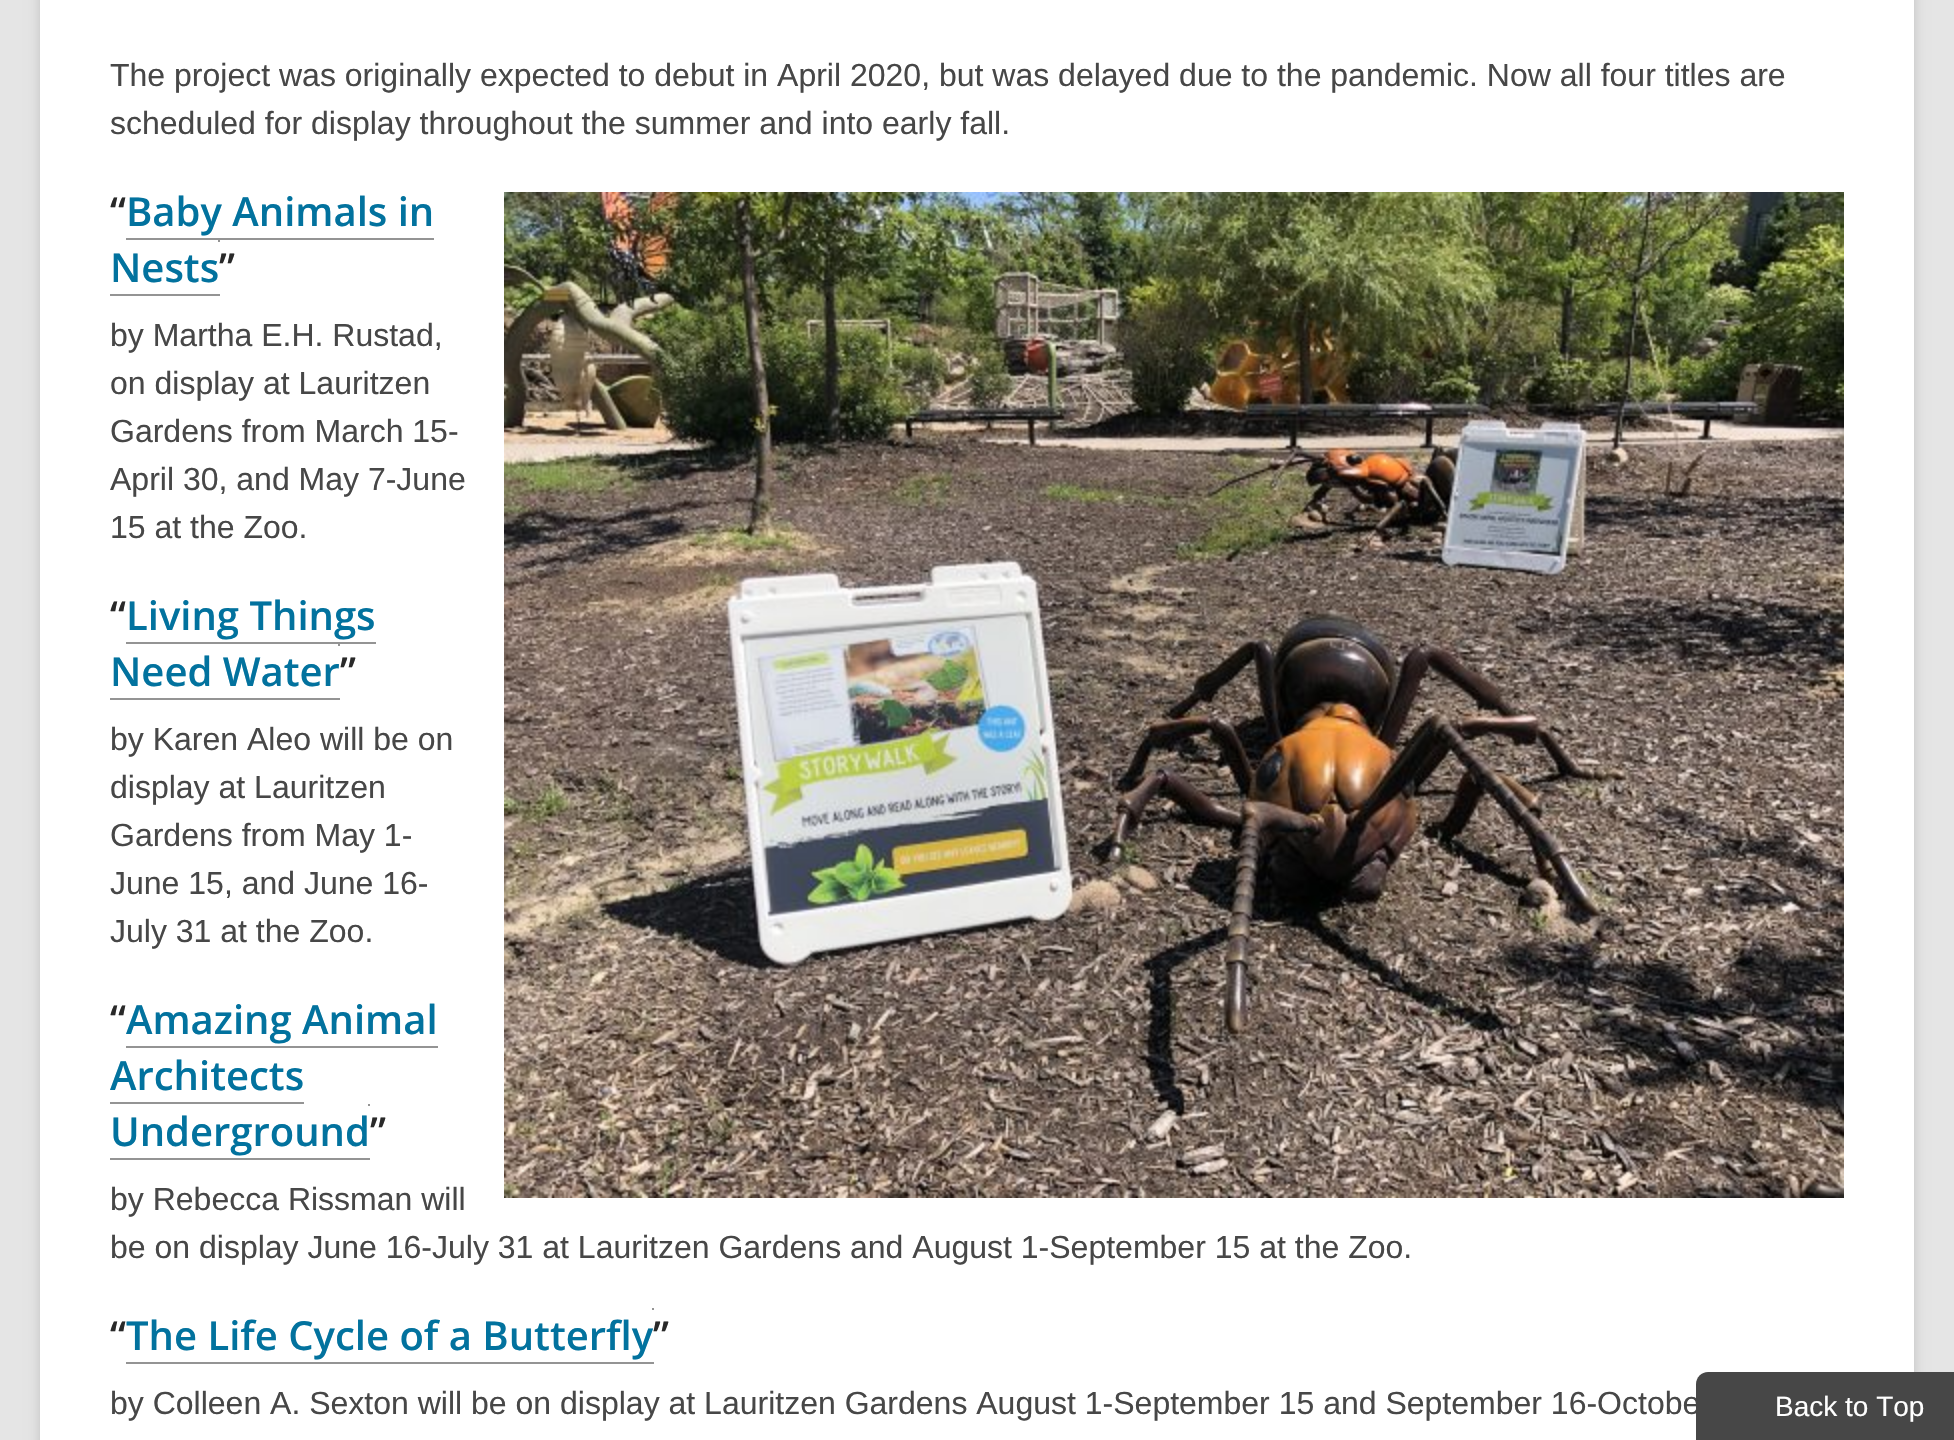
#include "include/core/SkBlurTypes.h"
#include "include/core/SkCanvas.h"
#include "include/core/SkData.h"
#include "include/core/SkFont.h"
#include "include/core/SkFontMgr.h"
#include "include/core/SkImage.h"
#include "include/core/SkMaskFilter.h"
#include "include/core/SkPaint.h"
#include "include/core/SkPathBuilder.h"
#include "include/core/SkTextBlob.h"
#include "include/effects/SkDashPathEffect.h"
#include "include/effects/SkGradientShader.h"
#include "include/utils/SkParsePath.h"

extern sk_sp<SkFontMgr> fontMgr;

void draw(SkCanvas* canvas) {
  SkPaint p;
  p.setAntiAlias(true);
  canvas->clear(SkColorSetRGB(229, 229, 229));
  p.setColor(SkColorSetARGB(41, 0, 0, 0));
  p.setMaskFilter(SkMaskFilter::MakeBlur(kNormal_SkBlurStyle, 6));
  canvas->drawRect(SkRect::MakeLTRB(40, -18, 1914, 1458), p);
  p.setMaskFilter(nullptr);
  p.setColor(SK_ColorWHITE);
  canvas->drawRect(SkRect::MakeLTRB(40, 0, 1914, 1440), p);
  p.setColor(SkColorSetRGB(148, 148, 148));
  canvas->drawRect(SkRect::MakeLTRB(126, 238, 434, 240), p);
  canvas->drawRect(SkRect::MakeLTRB(218, 240, 220, 242), p);
  canvas->drawRect(SkRect::MakeLTRB(110, 294, 220, 296), p);
  canvas->drawImageRect(SkImages::DeferredFromEncodedData(SkData::MakeFromFileName("images/1.png")), SkRect::MakeLTRB(504, 192, 1844, 1198), SkSamplingOptions());
  canvas->drawRect(SkRect::MakeLTRB(126, 642, 376, 644), p);
  canvas->drawRect(SkRect::MakeLTRB(338, 644, 340, 646), p);
  canvas->drawRect(SkRect::MakeLTRB(110, 698, 340, 700), p);
  canvas->drawRect(SkRect::MakeLTRB(126, 1046, 438, 1048), p);
  canvas->drawRect(SkRect::MakeLTRB(110, 1102, 304, 1104), p);
  canvas->drawRect(SkRect::MakeLTRB(110, 1158, 370, 1160), p);
  canvas->drawRect(SkRect::MakeLTRB(368, 1104, 370, 1106), p);
  canvas->drawRect(SkRect::MakeLTRB(126, 1362, 654, 1364), p);
  canvas->drawRect(SkRect::MakeLTRB(652, 1308, 654, 1310), p);
  p.setColor(SkColorSetRGB(71, 71, 71));
  canvas->drawPath(SkPathBuilder().moveTo(1708, 1372).lineTo(1954, 1372).lineTo(1954, 1440).lineTo(1696, 1440).lineTo(1696, 1384).cubicTo(1696, 1377.5f, 1701.5f, 1372, 1708, 1372).close().detach(), p);
  SkFont font1(fontMgr->matchFamilyStyle("Liberation Sans", SkFontStyle::Normal()), 32);
  font1.setSubpixel(true);
  canvas->drawString("The project was originally expected to debut in April 2020, but was delayed due to the pandemic. Now all four titles are", 110, 86, font1, p);
  canvas->drawString("scheduled for display throughout the summer and into early fall.", 110, 134, font1, p);
  SkFont font2(fontMgr->matchFamilyStyle("Open Sans", SkFontStyle(600, SkFontStyle::kNormal_Width, SkFontStyle::kUpright_Slant)), 40);
  font2.setSubpixel(true);
  p.setColor(SkColorSetRGB(41, 41, 41));
  canvas->drawString("“", 110, 226, font2, p);
  p.setColor(SkColorSetRGB(2, 114, 158));
  canvas->drawString("Baby Animals in", 126, 226, font2, p);
  canvas->drawString("Nests", 110, 282, font2, p);
  p.setColor(SkColorSetRGB(41, 41, 41));
  canvas->drawString("”", 219, 282, font2, p);
  p.setColor(SkColorSetRGB(71, 71, 71));
  canvas->drawString("by Martha E.H. Rustad,", 110, 346, font1, p);
  canvas->drawString("on display at Lauritzen", 110, 394, font1, p);
  canvas->drawString("Gardens from March 15-", 110, 442, font1, p);
  canvas->drawString("April 30, and May 7-June", 110, 490, font1, p);
  canvas->drawString("15 at the Zoo.", 110, 538, font1, p);
  p.setColor(SkColorSetRGB(41, 41, 41));
  canvas->drawString("“", 110, 630, font2, p);
  p.setColor(SkColorSetRGB(2, 114, 158));
  canvas->drawString("Living Things", 126, 630, font2, p);
  canvas->drawString("Need Water", 110, 686, font2, p);
  p.setColor(SkColorSetRGB(41, 41, 41));
  canvas->drawString("”", 340, 686, font2, p);
  p.setColor(SkColorSetRGB(71, 71, 71));
  canvas->drawString("by Karen Aleo will be on", 110, 750, font1, p);
  canvas->drawString("display at Lauritzen", 110, 798, font1, p);
  canvas->drawString("Gardens from May 1-", 110, 846, font1, p);
  canvas->drawString("June 15, and June 16-", 110, 894, font1, p);
  canvas->drawString("July 31 at the Zoo.", 110, 942, font1, p);
  p.setColor(SkColorSetRGB(41, 41, 41));
  canvas->drawString("“", 110, 1034, font2, p);
  p.setColor(SkColorSetRGB(2, 114, 158));
  canvas->drawString("Amazing Animal", 126, 1034, font2, p);
  canvas->drawString("Architects", 110, 1090, font2, p);
  canvas->drawString("Underground", 110, 1146, font2, p);
  p.setColor(SkColorSetRGB(41, 41, 41));
  canvas->drawString("”", 370, 1146, font2, p);
  p.setColor(SkColorSetRGB(71, 71, 71));
  canvas->drawString("by Rebecca Rissman will", 110, 1210, font1, p);
  canvas->drawString("be on display June 16-July 31 at Lauritzen Gardens and August 1-September 15 at the Zoo.", 110, 1258, font1, p);
  p.setColor(SkColorSetRGB(41, 41, 41));
  canvas->drawString("“", 110, 1350, font2, p);
  p.setColor(SkColorSetRGB(2, 114, 158));
  canvas->drawString("The Life Cycle of a Butterfly", 126, 1350, font2, p);
  p.setColor(SkColorSetRGB(41, 41, 41));
  canvas->drawString("”", 653, 1350, font2, p);
  p.setColor(SkColorSetRGB(71, 71, 71));
  canvas->drawString("by Colleen A. Sexton will be on display at Lauritzen Gardens August 1-September 15 and September 16-Octobe", 110, 1414, font1, p);
  SkFont font3(fontMgr->matchFamilyStyle("Liberation Sans", SkFontStyle::Normal()), 28);
  font3.setSubpixel(true);
  p.setColor(SK_ColorWHITE);
  canvas->drawString("Back to Top", 1775, 1416, font3, p);
}
